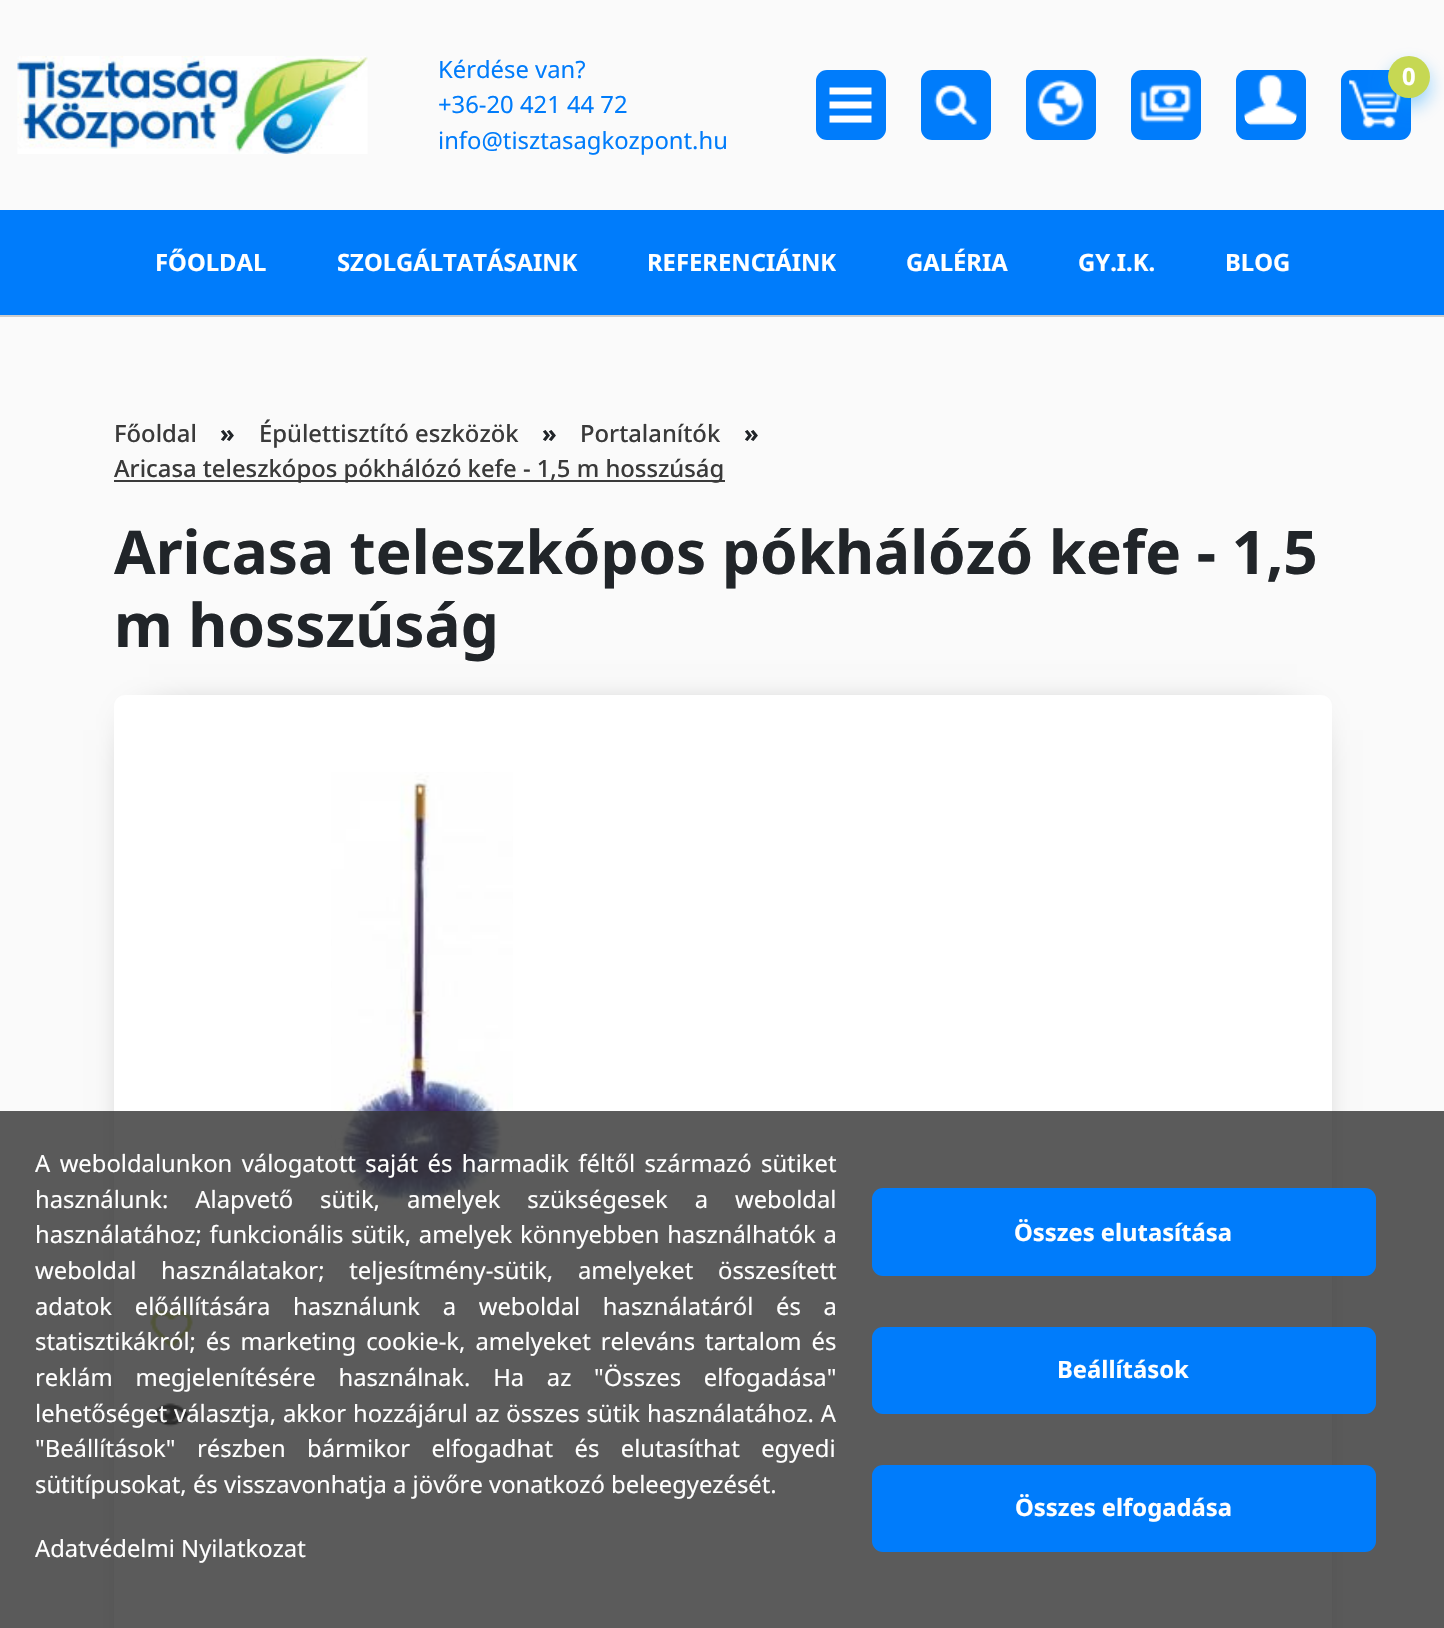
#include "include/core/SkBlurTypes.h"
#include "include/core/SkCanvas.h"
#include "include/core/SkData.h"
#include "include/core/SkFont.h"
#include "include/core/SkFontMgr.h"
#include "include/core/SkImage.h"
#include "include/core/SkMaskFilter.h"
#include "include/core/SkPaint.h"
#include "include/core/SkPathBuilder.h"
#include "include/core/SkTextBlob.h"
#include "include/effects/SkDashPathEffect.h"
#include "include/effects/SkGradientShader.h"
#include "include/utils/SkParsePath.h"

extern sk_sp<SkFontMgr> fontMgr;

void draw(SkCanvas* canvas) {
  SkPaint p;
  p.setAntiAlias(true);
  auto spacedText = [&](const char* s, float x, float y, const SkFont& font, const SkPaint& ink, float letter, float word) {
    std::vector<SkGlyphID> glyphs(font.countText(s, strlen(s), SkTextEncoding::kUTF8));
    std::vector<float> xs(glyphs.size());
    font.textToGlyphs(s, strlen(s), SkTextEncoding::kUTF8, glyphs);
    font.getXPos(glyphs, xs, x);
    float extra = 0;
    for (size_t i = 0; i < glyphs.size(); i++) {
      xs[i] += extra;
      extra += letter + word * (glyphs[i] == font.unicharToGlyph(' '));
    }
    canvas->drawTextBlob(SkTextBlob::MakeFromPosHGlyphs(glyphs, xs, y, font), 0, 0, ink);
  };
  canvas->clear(SkColorSetRGB(250, 250, 250));
  p.setColor(SkColorSetRGB(204, 204, 204));
  canvas->drawRect(SkRect::MakeLTRB(0, 315, 1444, 317), p);
  canvas->drawImageRect(SkImages::DeferredFromEncodedData(SkData::MakeFromFileName("images/1.png")), SkRect::MakeLTRB(17, 56, 368, 154), SkSamplingOptions());
  p.setColor(SkColorSetRGB(0, 124, 251));
  canvas->drawRoundRect(SkRect::MakeLTRB(816, 70, 886, 140), 11, 11, p);
  canvas->drawImageRect(SkImages::DeferredFromEncodedData(SkData::MakeFromFileName("images/2.png")), SkRect::MakeLTRB(829, 87, 872, 123), SkSamplingOptions());
  canvas->drawRoundRect(SkRect::MakeLTRB(921, 70, 991, 140), 11, 11, p);
  canvas->drawImageRect(SkImages::DeferredFromEncodedData(SkData::MakeFromFileName("images/3.png")), SkRect::MakeLTRB(934, 84, 977, 125), SkSamplingOptions());
  canvas->drawRoundRect(SkRect::MakeLTRB(1026, 70, 1096, 140), 11, 11, p);
  canvas->drawImageRect(SkImages::DeferredFromEncodedData(SkData::MakeFromFileName("images/4.png")), SkRect::MakeLTRB(1037, 80, 1084, 127), SkSamplingOptions());
  canvas->drawRoundRect(SkRect::MakeLTRB(1131, 70, 1201, 140), 11, 11, p);
  canvas->drawImageRect(SkImages::DeferredFromEncodedData(SkData::MakeFromFileName("images/5.png")), SkRect::MakeLTRB(1139, 83, 1192, 123), SkSamplingOptions());
  canvas->drawRoundRect(SkRect::MakeLTRB(1236, 70, 1306, 140), 11, 11, p);
  canvas->drawImageRect(SkImages::DeferredFromEncodedData(SkData::MakeFromFileName("images/6.png")), SkRect::MakeLTRB(1244, 74, 1297, 125), SkSamplingOptions());
  canvas->drawRoundRect(SkRect::MakeLTRB(1341, 70, 1411, 140), 11, 11, p);
  canvas->drawImageRect(SkImages::DeferredFromEncodedData(SkData::MakeFromFileName("images/7.png")), SkRect::MakeLTRB(1349, 79, 1401, 129), SkSamplingOptions());
  p.setColor(SkColorSetARGB(102, 3, 151, 255));
  p.setMaskFilter(SkMaskFilter::MakeBlur(kNormal_SkBlurStyle, 9));
  canvas->drawRoundRect(SkRect::MakeLTRB(1388, 65, 1430, 107), 21, 21, p);
  p.setMaskFilter(nullptr);
  p.setColor(SkColorSetRGB(198, 216, 83));
  canvas->drawCircle(1409, 77, 21, p);
  p.setColor(SkColorSetRGB(0, 124, 251));
  canvas->drawRect(SkRect::MakeLTRB(0, 210, 1444, 315), p);
  p.setColor(SkColorSetRGB(58, 58, 58));
  canvas->drawRect(SkRect::MakeLTRB(114, 480, 725, 482), p);
  p.setColor(SK_ColorBLACK);
  p.setMaskFilter(SkMaskFilter::MakeBlur(kNormal_SkBlurStyle, 22));
  canvas->drawRect(SkRect::MakeLTRB(149, 730, 1297, 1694), p);
  p.setMaskFilter(nullptr);
  p.setColor(SK_ColorWHITE);
  canvas->drawRoundRect(SkRect::MakeLTRB(114, 695, 1332, 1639), 11, 11, p);
  canvas->drawImageRect(SkImages::DeferredFromEncodedData(SkData::MakeFromFileName("images/8.png")), SkRect::MakeLTRB(331, 772, 513, 1207), SkSamplingOptions());
  canvas->drawImageRect(SkImages::DeferredFromEncodedData(SkData::MakeFromFileName("images/9.png")), SkRect::MakeLTRB(150, 1310, 193, 1348), SkSamplingOptions());
  canvas->drawImageRect(SkImages::DeferredFromEncodedData(SkData::MakeFromFileName("images/10.png")), SkRect::MakeLTRB(151, 1403, 191, 1427), SkSamplingOptions());
  p.setColor(SkColorSetARGB(204, 50, 50, 50));
  canvas->drawRect(SkRect::MakeLTRB(0, 1111, 1444, 1628), p);
  p.setColor(SkColorSetRGB(0, 124, 251));
  canvas->drawRoundRect(SkRect::MakeLTRB(872, 1188, 1376, 1276), 11, 11, p);
  canvas->drawRoundRect(SkRect::MakeLTRB(872, 1327, 1376, 1414), 11, 11, p);
  canvas->drawRoundRect(SkRect::MakeLTRB(872, 1465, 1376, 1552), 11, 11, p);
  SkFont font1(fontMgr->matchFamilyStyle("Noto Sans", SkFontStyle::Normal()), 23.8f);
  font1.setSubpixel(true);
  canvas->drawString("Kérdése van?", 438, 78, font1, p);
  canvas->drawString("+36-20 421 44 72", 438, 113, font1, p);
  canvas->drawString("info@tisztasagkozpont.hu", 438, 149, font1, p);
  SkFont font2(fontMgr->matchFamilyStyle("Noto Sans", SkFontStyle::Bold()), 23.8f);
  font2.setSubpixel(true);
  p.setColor(SK_ColorWHITE);
  canvas->drawString("0", 1402, 85, font2, p);
  canvas->drawString("FŐOLDAL", 155, 271, font2, p);
  canvas->drawString("SZOLGÁLTATÁSAINK", 337, 271, font2, p);
  canvas->drawString("REFERENCIÁINK", 647, 271, font2, p);
  canvas->drawString("GALÉRIA", 906, 271, font2, p);
  canvas->drawString("GY.I.K.", 1078, 271, font2, p);
  canvas->drawString("BLOG", 1225, 271, font2, p);
  SkFont font3(fontMgr->matchFamilyStyle("Noto Sans", SkFontStyle(500, SkFontStyle::kNormal_Width, SkFontStyle::kUpright_Slant)), 23.8f);
  font3.setSubpixel(true);
  p.setColor(SkColorSetRGB(58, 58, 58));
  canvas->drawString("Főoldal", 114, 442, font3, p);
  p.setColor(SkColorSetRGB(33, 37, 41));
  canvas->drawString("»", 220, 442, font2, p);
  p.setColor(SkColorSetRGB(58, 58, 58));
  canvas->drawString("Épülettisztító eszközök", 259, 442, font3, p);
  p.setColor(SkColorSetRGB(33, 37, 41));
  canvas->drawString("»", 542, 442, font2, p);
  p.setColor(SkColorSetRGB(58, 58, 58));
  canvas->drawString("Portalanítók", 580, 442, font3, p);
  p.setColor(SkColorSetRGB(33, 37, 41));
  canvas->drawString("»", 744, 442, font2, p);
  p.setColor(SkColorSetRGB(58, 58, 58));
  canvas->drawString("Aricasa teleszkópos pókhálózó kefe - 1,5 m hosszúság", 114, 477, font3, p);
  SkFont font4(fontMgr->matchFamilyStyle("Noto Sans", SkFontStyle::Bold()), 60.2f);
  font4.setSubpixel(true);
  p.setColor(SkColorSetRGB(33, 37, 41));
  canvas->drawString("Aricasa teleszkópos pókhálózó kefe - 1,5", 114, 574, font4, p);
  canvas->drawString("m hosszúság", 114, 647, font4, p);
  p.setColor(SK_ColorWHITE);
  spacedText("A weboldalunkon válogatott saját és harmadik féltől származó sütiket", 35, 1172, font1, p, 0, 3.25f);
  spacedText("használunk: Alapvető sütik, amelyek szükségesek a weboldal", 35, 1208, font1, p, 0, 20.75f);
  spacedText("használatához; funkcionális sütik, amelyek könnyebben használhatók a", 35, 1243, font1, p, 0, 1.5f);
  spacedText("weboldal használatakor; teljesítmény-sütik, amelyeket összesített", 35, 1279, font1, p, 0, 18.5f);
  spacedText("adatok előállítására használunk a weboldal használatáról és a", 35, 1315, font1, p, 0, 16.5f);
  spacedText("statisztikákról; és marketing cookie-k, amelyeket releváns tartalom és", 35, 1350, font1, p, 0, 3.75f);
  spacedText("reklám megjelenítésére használnak. Ha az \"Összes elfogadása\"", 35, 1386, font1, p, 0, 16.5f);
  spacedText("lehetőséget választja, akkor hozzájárul az összes sütik használatához. A", 35, 1422, font1, p, 0, 0.75f);
  spacedText("\"Beállítások\" részben bármikor elfogadhat és elutasíthat egyedi", 35, 1457, font1, p, 0, 15.25f);
  canvas->drawString("sütitípusokat, és visszavonhatja a jövőre vonatkozó beleegyezését.", 35, 1493, font1, p);
  canvas->drawString("Adatvédelmi Nyilatkozat", 35, 1557, font1, p);
  canvas->drawString("Összes elutasítása", 1014, 1241, font2, p);
  canvas->drawString("Beállítások", 1057, 1378, font2, p);
  canvas->drawString("Összes elfogadása", 1015, 1516, font2, p);
}
